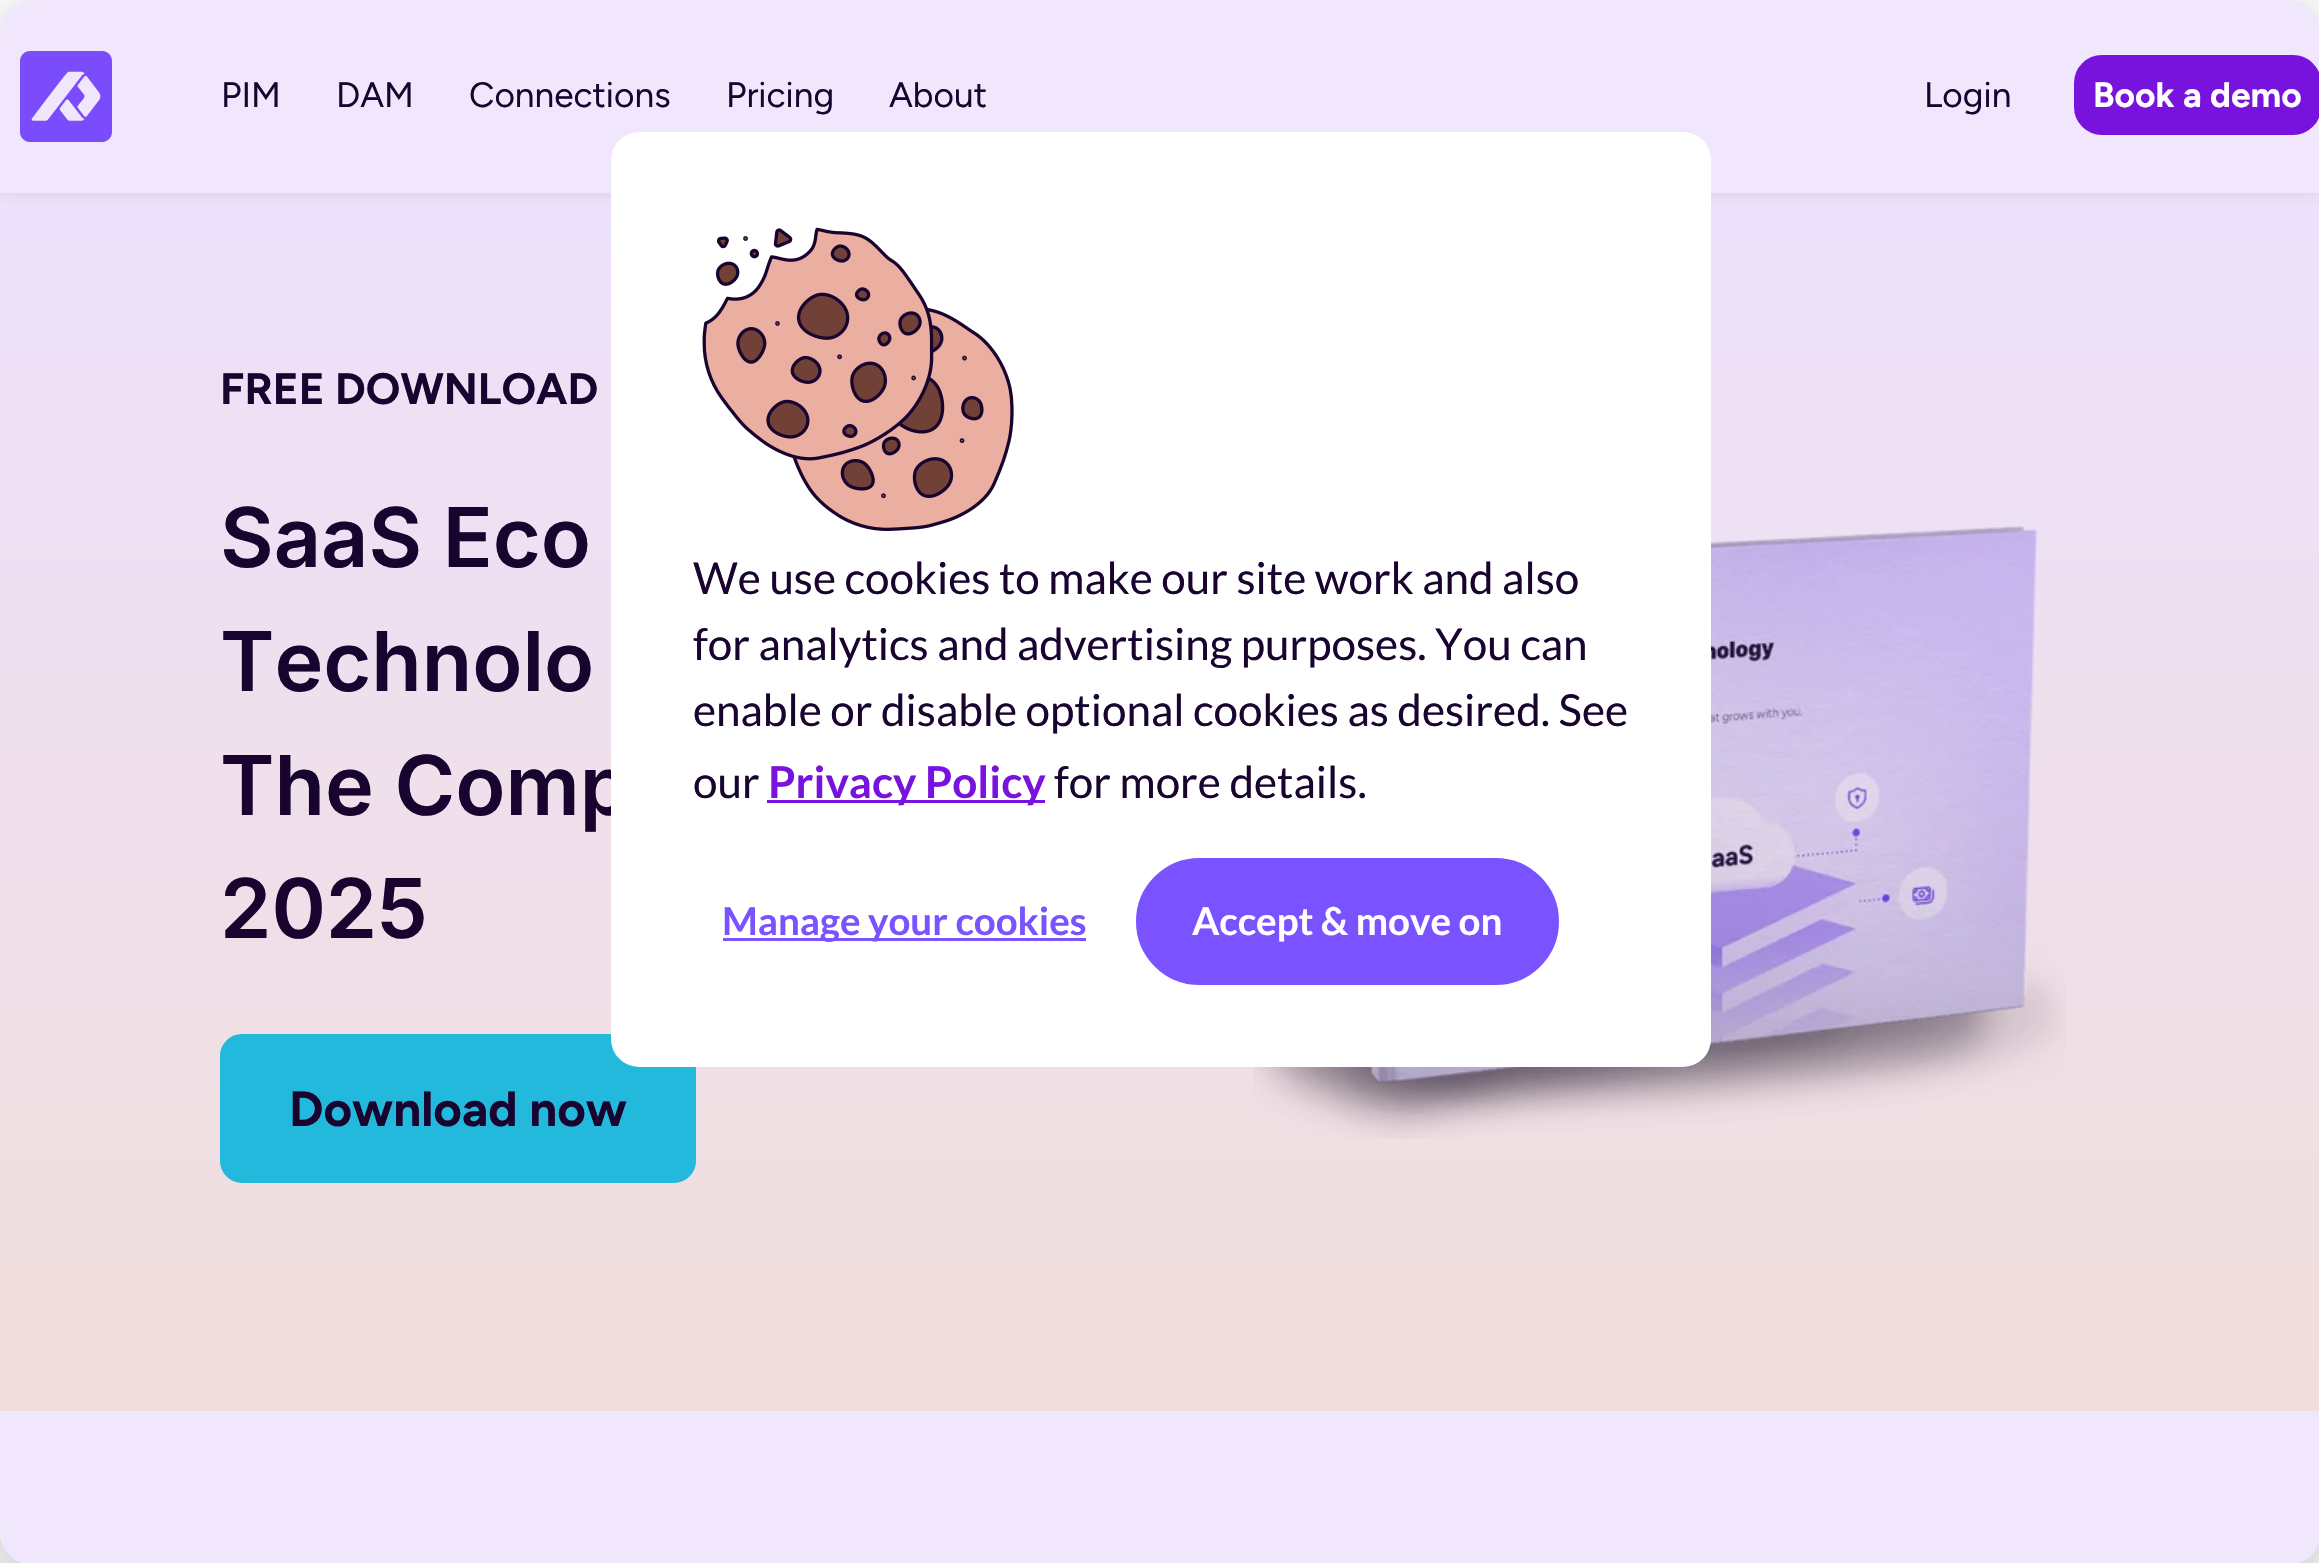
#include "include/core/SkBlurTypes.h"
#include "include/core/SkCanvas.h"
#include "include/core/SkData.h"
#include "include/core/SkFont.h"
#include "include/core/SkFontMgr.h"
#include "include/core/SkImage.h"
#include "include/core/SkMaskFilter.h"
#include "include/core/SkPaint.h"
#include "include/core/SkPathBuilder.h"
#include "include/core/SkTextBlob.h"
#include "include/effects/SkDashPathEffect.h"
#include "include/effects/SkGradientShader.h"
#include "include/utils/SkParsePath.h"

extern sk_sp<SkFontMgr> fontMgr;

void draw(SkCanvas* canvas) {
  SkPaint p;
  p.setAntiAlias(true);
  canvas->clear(SK_ColorWHITE);
  {
    const SkColor colors[] = {SkColorSetRGB(251, 250, 255), SkColorSetRGB(255, 245, 219)};
    const float stops[] = {0, 1};
    const SkPoint ends[] = {{1161, 192}, {1161, 1411}};
    p.setShader(SkGradientShader::MakeLinear(ends, colors, stops, 2, SkTileMode::kClamp));
    p.setAlpha(255);
  }
  canvas->drawRect(SkRect::MakeLTRB(0, 193, 2319, 1411), p);
  p.setShader(nullptr);
  p.setColor(SkColorSetARGB(26, 25, 4, 47));
  p.setMaskFilter(SkMaskFilter::MakeBlur(kNormal_SkBlurStyle, 8));
  canvas->drawRect(SkRect::MakeLTRB(0, 0, 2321, 193), p);
  p.setMaskFilter(nullptr);
  p.setColor(SK_ColorWHITE);
  canvas->drawRect(SkRect::MakeLTRB(0, 0, 2319, 193), p);
  canvas->drawImageRect(SkImages::DeferredFromEncodedData(SkData::MakeFromFileName("images/1.png")), SkRect::MakeLTRB(20, 51, 112, 142), SkSamplingOptions());
  p.setColor(SkColorSetRGB(120, 18, 222));
  canvas->drawRoundRect(SkRect::MakeLTRB(2075.5f, 56.5f, 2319.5f, 133.5f), 26.5f, 26.5f, p);
  p.setStyle(SkPaint::kStroke_Style);
  p.setStrokeWidth(3);
  canvas->drawRoundRect(SkRect::MakeLTRB(2075.5f, 56.5f, 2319.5f, 133.5f), 26.5f, 26.5f, p);
  p.setStyle(SkPaint::kFill_Style);
  p.setColor(SkColorSetRGB(24, 204, 220));
  canvas->drawRoundRect(SkRect::MakeLTRB(221.5f, 1035.5f, 694.5f, 1181.5f), 20.5f, 20.5f, p);
  p.setStyle(SkPaint::kStroke_Style);
  canvas->drawRoundRect(SkRect::MakeLTRB(221.5f, 1035.5f, 694.5f, 1181.5f), 20.5f, 20.5f, p);
  canvas->drawImageRect(SkImages::DeferredFromEncodedData(SkData::MakeFromFileName("images/2.png")), SkRect::MakeLTRB(1253, 526, 2066, 1139), SkSamplingOptions());
  canvas->save();
  canvas->clipPath(SkPathBuilder(SkPathFillType::kEvenOdd).moveTo(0, 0).lineTo(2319, 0).lineTo(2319, 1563).lineTo(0, 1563).close().moveTo(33, 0).lineTo(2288, 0).cubicTo(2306, 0, 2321, 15, 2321, 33).lineTo(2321, 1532).cubicTo(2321, 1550, 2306, 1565, 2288, 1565).lineTo(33, 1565).cubicTo(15, 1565, 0, 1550, 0, 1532).lineTo(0, 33).cubicTo(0, 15, 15, 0, 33, 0).close().detach(), true);
  p.setStyle(SkPaint::kFill_Style);
  p.setColor(SkColorSetARGB(71, 0, 0, 0));
  p.setMaskFilter(SkMaskFilter::MakeBlur(kNormal_SkBlurStyle, 38.5f));
  canvas->drawRoundRect(SkRect::MakeLTRB(0, 22, 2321, 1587), 33, 33, p);
  p.setMaskFilter(nullptr);
  canvas->restore();
  p.setColor(SkColorSetARGB(26, 120, 18, 222));
  canvas->drawRoundRect(SkRect::MakeLTRB(0, 0, 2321, 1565), 33, 33, p);
  SkFont font1(fontMgr->matchFamilyStyle("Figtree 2", SkFontStyle(300, SkFontStyle::kNormal_Width, SkFontStyle::kUpright_Slant)), 35.25f);
  font1.setSubpixel(true);
  p.setColor(SkColorSetRGB(25, 4, 47));
  canvas->drawString("PIM", 221, 107, font1, p);
  canvas->drawString("DAM", 336, 107, font1, p);
  canvas->drawString("Connections", 469, 107, font1, p);
  canvas->drawString("Pricing", 726, 107, font1, p);
  canvas->drawString("About", 889, 107, font1, p);
  canvas->drawString("Login", 1924, 107, font1, p);
  SkFont font2(fontMgr->matchFamilyStyle("Figtree", SkFontStyle(300, SkFontStyle::kNormal_Width, SkFontStyle::kUpright_Slant)), 35.25f);
  font2.setSubpixel(true);
  p.setColor(SK_ColorWHITE);
  canvas->drawString("Book a demo", 2093, 107, font2, p);
  SkFont font3(fontMgr->matchFamilyStyle("Figtree", SkFontStyle(300, SkFontStyle::kNormal_Width, SkFontStyle::kUpright_Slant)), 44);
  font3.setSubpixel(true);
  p.setColor(SkColorSetRGB(25, 4, 47));
  canvas->drawString("FREE DOWNLOAD", 220, 404, font3, p);
  SkFont font4(fontMgr->matchFamilyStyle("Inter", SkFontStyle(600, SkFontStyle::kNormal_Width, SkFontStyle::kUpright_Slant)), 82.5f);
  font4.setSubpixel(true);
  canvas->drawString("SaaS Eco", 220, 567, font4, p);
  canvas->drawString("Technolo", 220, 691, font4, p);
  canvas->drawString("The Comp", 220, 815, font4, p);
  canvas->drawString("2025", 220, 938, font4, p);
  SkFont font5(fontMgr->matchFamilyStyle("Figtree", SkFontStyle(300, SkFontStyle::kNormal_Width, SkFontStyle::kUpright_Slant)), 49.25f);
  font5.setSubpixel(true);
  canvas->drawString("Download now", 289, 1126, font5, p);
  p.setColor(SK_ColorWHITE);
  canvas->drawRoundRect(SkRect::MakeLTRB(611, 132, 1711, 1067), 28, 28, p);
  canvas->drawImageRect(SkImages::DeferredFromEncodedData(SkData::MakeFromFileName("images/3.png")), SkRect::MakeLTRB(702, 227, 1014, 531), SkSamplingOptions());
  SkFont font6(fontMgr->matchFamilyStyle("Lato", SkFontStyle::Normal()), 44);
  font6.setSubpixel(true);
  p.setColor(SkColorSetRGB(25, 4, 47));
  canvas->drawString("We use cookies to make our site work and also", 693, 594, font6, p);
  canvas->drawString("for analytics and advertising purposes. You can", 693, 660, font6, p);
  canvas->drawString("enable or disable optional cookies as desired. See", 693, 726, font6, p);
  canvas->drawString("our", 693, 798, font6, p);
  p.setColor(SkColorSetRGB(120, 18, 222));
  canvas->drawRect(SkRect::MakeLTRB(767, 800, 1045, 803), p);
  SkFont font7(fontMgr->matchFamilyStyle("Lato", SkFontStyle::Bold()), 44);
  font7.setSubpixel(true);
  canvas->drawString("Privacy Policy", 768, 798, font7, p);
  p.setColor(SkColorSetRGB(25, 4, 47));
  canvas->drawString("for more details.", 1054, 798, font6, p);
  p.setColor(SkColorSetRGB(122, 82, 255));
  canvas->drawRect(SkRect::MakeLTRB(723, 938, 1086, 941), p);
  SkFont font8(fontMgr->matchFamilyStyle("Lato", SkFontStyle::Bold()), 38.5f);
  font8.setSubpixel(true);
  canvas->drawString("Manage your cookies", 722, 935, font8, p);
  canvas->drawRoundRect(SkRect::MakeLTRB(1137.5f, 859.5f, 1557.5f, 983.5f), 62, 62, p);
  p.setStyle(SkPaint::kStroke_Style);
  canvas->drawRoundRect(SkRect::MakeLTRB(1137.5f, 859.5f, 1557.5f, 983.5f), 62, 62, p);
  p.setStyle(SkPaint::kFill_Style);
  p.setColor(SK_ColorWHITE);
  canvas->drawString("Accept & move on", 1192, 935, font8, p);
}
